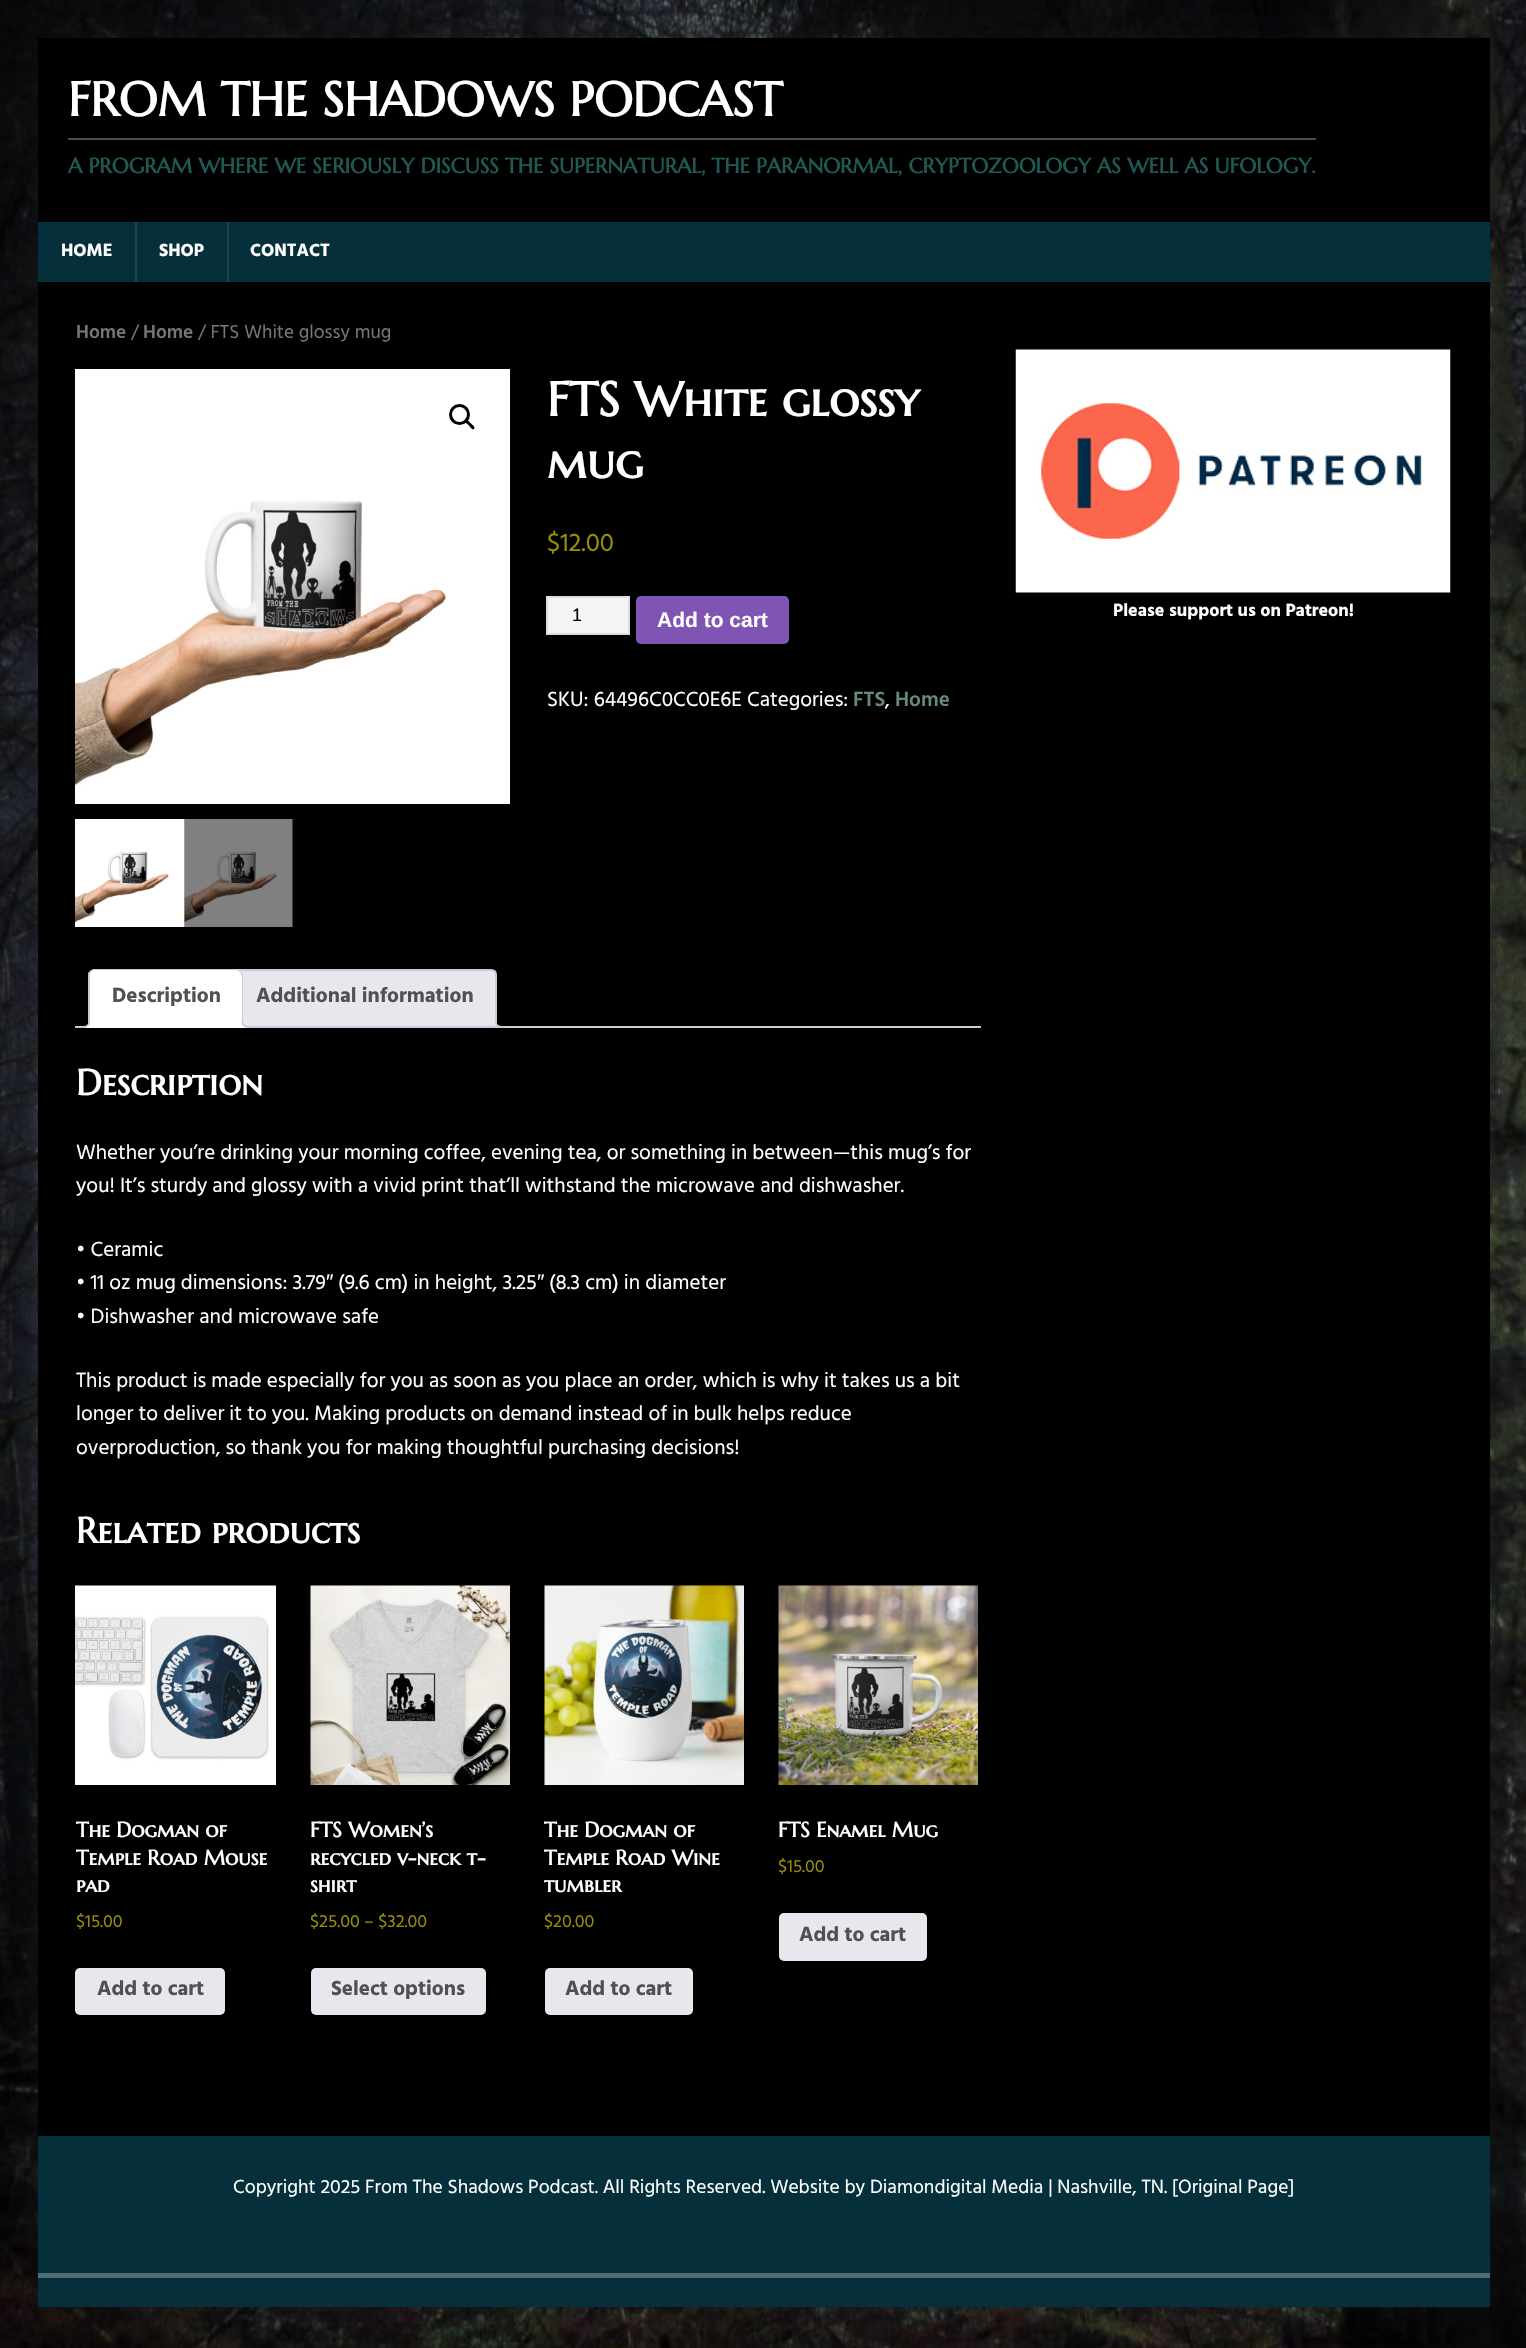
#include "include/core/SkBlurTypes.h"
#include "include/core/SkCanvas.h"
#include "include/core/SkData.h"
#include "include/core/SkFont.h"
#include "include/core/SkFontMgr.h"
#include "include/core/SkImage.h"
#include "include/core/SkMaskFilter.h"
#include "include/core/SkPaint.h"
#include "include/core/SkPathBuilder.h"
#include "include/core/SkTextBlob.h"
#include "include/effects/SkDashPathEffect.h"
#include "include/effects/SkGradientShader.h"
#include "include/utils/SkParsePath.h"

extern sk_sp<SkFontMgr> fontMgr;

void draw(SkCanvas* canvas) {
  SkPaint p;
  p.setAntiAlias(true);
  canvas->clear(SK_ColorWHITE);
  canvas->drawImageRect(SkImages::DeferredFromEncodedData(SkData::MakeFromFileName("images/1.png")), SkRect::MakeLTRB(0, 0, 1526, 2348), SkSamplingOptions());
  p.setColor(SkColorSetARGB(43, 50, 50, 50));
  p.setMaskFilter(SkMaskFilter::MakeBlur(kNormal_SkBlurStyle, 7.5f));
  canvas->drawRect(SkRect::MakeLTRB(38, 38, 1490, 2307), p);
  p.setMaskFilter(nullptr);
  p.setColor(SK_ColorBLACK);
  canvas->drawRect(SkRect::MakeLTRB(38, 38, 1490, 222), p);
  p.setColor(SkColorSetRGB(77, 77, 77));
  canvas->drawRect(SkRect::MakeLTRB(68, 138, 1316, 140), p);
  p.setColor(SkColorSetRGB(5, 47, 59));
  canvas->drawRect(SkRect::MakeLTRB(38, 222, 1490, 282), p);
  p.setColor(SkColorSetRGB(30, 68, 79));
  canvas->drawRect(SkRect::MakeLTRB(135, 222, 137, 282), p);
  canvas->drawRect(SkRect::MakeLTRB(227, 222, 229, 282), p);
  p.setColor(SK_ColorBLACK);
  canvas->drawRect(SkRect::MakeLTRB(38, 282, 1490, 2136), p);
  canvas->drawImageRect(SkImages::DeferredFromEncodedData(SkData::MakeFromFileName("images/2.png")), SkRect::MakeLTRB(75, 369, 510, 804), SkSamplingOptions());
  p.setStyle(SkPaint::kStroke_Style);
  p.setStrokeWidth(3);
  canvas->drawCircle(459.5f, 414.5f, 9, p);
  p.setStyle(SkPaint::kFill_Style);
  canvas->drawPath(SkPathBuilder().moveTo(465.5f, 420.5f).cubicTo(467.5f, 418.5f, 470, 422.5f, 471, 423.5f).cubicTo(472, 424.5f, 476, 427, 474, 429).cubicTo(472.5f, 430.5f, 469.5f, 426.5f, 469, 425.5f).cubicTo(468, 424.5f, 464, 422, 465.5f, 420.5f).close().detach(), p);
  canvas->drawImageRect(SkImages::DeferredFromEncodedData(SkData::MakeFromFileName("images/3.png")), SkRect::MakeLTRB(75, 819, 185, 927), SkSamplingOptions());
  canvas->drawImageRect(SkImages::DeferredFromEncodedData(SkData::MakeFromFileName("images/4.png")), SkRect::MakeLTRB(184, 819, 293, 927), SkSamplingOptions());
  p.setColor(SkColorSetRGB(245, 245, 245));
  canvas->drawRect(SkRect::MakeLTRB(547, 597, 629, 634), p);
  p.setStyle(SkPaint::kStroke_Style);
  p.setStrokeWidth(2);
  p.setColor(SkColorSetRGB(221, 221, 221));
  canvas->drawRect(SkRect::MakeLTRB(547, 597, 629, 634), p);
  p.setStyle(SkPaint::kFill_Style);
  p.setColor(SkColorSetRGB(127, 84, 179));
  canvas->drawRoundRect(SkRect::MakeLTRB(636, 596, 789, 644), 5, 5, p);
  p.setColor(SkColorSetRGB(233, 230, 237));
  canvas->drawPath(SkPathBuilder().moveTo(240, 970).lineTo(491, 970).cubicTo(494, 970, 496, 972, 496, 975).lineTo(496, 1027).lineTo(235, 1027).lineTo(235, 975).cubicTo(235, 972, 237, 970, 240, 970).close().detach(), p);
  p.setStyle(SkPaint::kStroke_Style);
  p.setColor(SkColorSetRGB(207, 200, 216));
  canvas->drawPath(SkPathBuilder().moveTo(240, 970).lineTo(491, 970).cubicTo(494, 970, 496, 972, 496, 975).lineTo(496, 1027).lineTo(235, 1027).lineTo(235, 975).cubicTo(235, 972, 237, 970, 240, 970).close().detach(), p);
  canvas->save();
  canvas->clipRect(SkRect::MakeLTRB(75, 969, 981, 1028));
  p.setStyle(SkPaint::kFill_Style);
  p.setColor(SkColorSetRGB(233, 230, 237));
  canvas->drawPath(SkPathBuilder().moveTo(492, 1023).cubicTo(492, 1029, 494, 1031, 500, 1031).lineTo(500, 1027.5f).cubicTo(497.5f, 1027, 496, 1025.5f, 495, 1023).close().detach(), p);
  canvas->restore();
  p.setColor(SkColorSetRGB(207, 200, 216));
  canvas->drawPath(SkPathBuilder(SkPathFillType::kEvenOdd).moveTo(495, 1020).lineTo(502.5f, 1020).lineTo(502.5f, 1027.5f).cubicTo(498.5f, 1027.5f, 495, 1026, 495, 1021.5f).close().moveTo(496.5f, 1020).lineTo(502.5f, 1020).lineTo(502.5f, 1026).cubicTo(499.5f, 1026, 496.5f, 1025, 496.5f, 1021.5f).close().detach(), p);
  canvas->drawRect(SkRect::MakeLTRB(75, 1026, 981, 1028), p);
  p.setColor(SK_ColorWHITE);
  canvas->drawPath(SkPathBuilder().moveTo(95, 969).lineTo(237, 969).cubicTo(240.5f, 969, 243, 971.5f, 243, 975).lineTo(243, 1028).lineTo(89, 1028).lineTo(89, 975).cubicTo(89, 971.5f, 91.5f, 969, 95, 969).close().detach(), p);
  p.setColor(SkColorSetRGB(207, 200, 216));
  canvas->drawPath(SkPathBuilder().moveTo(94, 969).cubicTo(93, 969, 91, 970, 90, 971).lineTo(91, 972).cubicTo(92, 971, 93, 970, 94, 970).lineTo(237, 970).lineTo(240, 972).lineTo(241, 971).cubicTo(240, 970, 238, 969, 237, 969).close().detach(), p);
  canvas->drawPath(SkPathBuilder().moveTo(243, 1028).lineTo(243, 975).cubicTo(243, 974, 242, 972, 241, 971).lineTo(240, 972).lineTo(242, 975).lineTo(242, 1026).close().detach(), p);
  p.setColor(SK_ColorWHITE);
  canvas->drawPath(SkPathBuilder().moveTo(243, 1028).lineTo(242, 1026).lineTo(90, 1026).lineTo(88, 1028).close().detach(), p);
  p.setColor(SkColorSetRGB(207, 200, 216));
  canvas->drawPath(SkPathBuilder().moveTo(88, 1028).lineTo(88, 973).lineTo(90, 971).lineTo(91, 972).cubicTo(90, 973, 90, 974, 90, 975).lineTo(90, 1026).close().detach(), p);
  canvas->save();
  canvas->clipRect(SkRect::MakeLTRB(75, 969, 981, 1028));
  p.setColor(SK_ColorWHITE);
  canvas->drawPath(SkPathBuilder().moveTo(86, 1027).lineTo(86, 1031).cubicTo(91.5f, 1031, 93, 1028, 93, 1023).lineTo(90, 1023).cubicTo(89.5f, 1025, 88, 1026.5f, 86, 1027).close().detach(), p);
  canvas->restore();
  p.setColor(SkColorSetRGB(207, 200, 216));
  canvas->drawPath(SkPathBuilder(SkPathFillType::kEvenOdd).moveTo(82.5f, 1020).lineTo(90, 1020).cubicTo(90, 1025.5f, 88, 1027.5f, 82.5f, 1027.5f).close().moveTo(82.5f, 1020).lineTo(88.5f, 1020).cubicTo(88.5f, 1024.5f, 87, 1026, 82.5f, 1026).close().detach(), p);
  canvas->save();
  canvas->clipRect(SkRect::MakeLTRB(75, 969, 981, 1028));
  p.setColor(SK_ColorWHITE);
  canvas->drawPath(SkPathBuilder().moveTo(239, 1023).cubicTo(239, 1028, 240.5f, 1031, 246, 1031).lineTo(246, 1027.5f).cubicTo(244, 1027, 242, 1025, 241.5f, 1023).close().detach(), p);
  canvas->restore();
  p.setColor(SkColorSetRGB(207, 200, 216));
  canvas->drawPath(SkPathBuilder(SkPathFillType::kEvenOdd).moveTo(241.5f, 1020).lineTo(249, 1020).lineTo(249, 1027.5f).cubicTo(245, 1027.5f, 241.5f, 1026, 241.5f, 1021.5f).close().moveTo(243, 1020).lineTo(249, 1020).lineTo(249, 1026).cubicTo(246, 1026, 243, 1025, 243, 1021.5f).close().detach(), p);
  canvas->drawImageRect(SkImages::DeferredFromEncodedData(SkData::MakeFromFileName("images/5.png")), SkRect::MakeLTRB(75, 1585, 276, 1785), SkSamplingOptions());
  p.setColor(SkColorSetRGB(233, 230, 237));
  canvas->drawRoundRect(SkRect::MakeLTRB(75, 1968, 225, 2015), 5, 5, p);
  canvas->drawImageRect(SkImages::DeferredFromEncodedData(SkData::MakeFromFileName("images/6.png")), SkRect::MakeLTRB(310, 1585, 510, 1785), SkSamplingOptions());
  canvas->drawRoundRect(SkRect::MakeLTRB(311, 1968, 486, 2015), 5, 5, p);
  canvas->drawImageRect(SkImages::DeferredFromEncodedData(SkData::MakeFromFileName("images/7.png")), SkRect::MakeLTRB(544, 1585, 744, 1785), SkSamplingOptions());
  canvas->drawRoundRect(SkRect::MakeLTRB(545, 1968, 693, 2015), 5, 5, p);
  canvas->drawImageRect(SkImages::DeferredFromEncodedData(SkData::MakeFromFileName("images/8.png")), SkRect::MakeLTRB(778, 1585, 978, 1785), SkSamplingOptions());
  canvas->drawRoundRect(SkRect::MakeLTRB(779, 1913, 927, 1961), 5, 5, p);
  canvas->drawImageRect(SkImages::DeferredFromEncodedData(SkData::MakeFromFileName("images/9.png")), SkRect::MakeLTRB(1015, 349, 1451, 593), SkSamplingOptions());
  p.setColor(SkColorSetRGB(5, 47, 59));
  canvas->drawRect(SkRect::MakeLTRB(38, 2136, 1490, 2273), p);
  canvas->drawRect(SkRect::MakeLTRB(38, 2278, 1490, 2307), p);
  p.setColor(SkColorSetRGB(80, 109, 118));
  canvas->drawRect(SkRect::MakeLTRB(38, 2273, 1490, 2278), p);
  SkFont font1(fontMgr->matchFamilyStyle("Marcellus SC", SkFontStyle::Bold()), 48);
  font1.setSubpixel(true);
  p.setColor(SK_ColorWHITE);
  canvas->drawString("FROM THE SHADOWS PODCAST", 68, 116, font1, p);
  SkFont font2(fontMgr->matchFamilyStyle("Marcellus SC", SkFontStyle::Bold()), 21);
  font2.setSubpixel(true);
  p.setColor(SkColorSetRGB(32, 88, 85));
  canvas->drawString("A PROGRAM WHERE WE SERIOUSLY DISCUSS THE SUPERNATURAL, THE PARANORMAL, CRYPTOZOOLOGY AS WELL AS UFOLOGY.", 68, 173, font2, p);
  SkFont font3(fontMgr->matchFamilyStyle("Hind", SkFontStyle::Bold()), 18);
  font3.setSubpixel(true);
  p.setColor(SK_ColorWHITE);
  canvas->drawString("HOME", 61, 256, font3, p);
  canvas->drawString("SHOP", 159, 256, font3, p);
  canvas->drawString("CONTACT", 250, 256, font3, p);
  SkFont font4(fontMgr->matchFamilyStyle("Hind", SkFontStyle(600, SkFontStyle::kNormal_Width, SkFontStyle::kUpright_Slant)), 19.25f);
  font4.setSubpixel(true);
  p.setColor(SkColorSetRGB(118, 118, 118));
  canvas->drawString("Home", 76, 338, font4, p);
  SkFont font5(fontMgr->matchFamilyStyle("Hind", SkFontStyle::Normal()), 19.25f);
  font5.setSubpixel(true);
  canvas->drawString("/", 131, 338, font5, p);
  canvas->drawString("Home", 143, 338, font4, p);
  canvas->drawString("/ FTS White glossy mug", 198, 338, font5, p);
  p.setColor(SK_ColorWHITE);
  canvas->drawString("FTS White glossy", 547, 416, font1, p);
  canvas->drawString("mug", 547, 478, font1, p);
  SkFont font6(fontMgr->matchFamilyStyle("Hind", SkFontStyle::Normal()), 26);
  font6.setSubpixel(true);
  p.setColor(SkColorSetRGB(149, 142, 9));
  canvas->drawString("$12.00", 547, 551, font6, p);
  SkFont font7(fontMgr->matchFamilyStyle("Liberation Sans", SkFontStyle::Normal()), 18);
  font7.setSubpixel(true);
  p.setColor(SK_ColorBLACK);
  canvas->drawString("1", 572, 621, font7, p);
  SkFont font8(fontMgr->matchFamilyStyle("Liberation Sans", SkFontStyle::Bold()), 21);
  font8.setSubpixel(true);
  p.setColor(SK_ColorWHITE);
  canvas->drawString("Add to cart", 657, 627, font8, p);
  SkFont font9(fontMgr->matchFamilyStyle("Hind", SkFontStyle::Normal()), 21);
  font9.setSubpixel(true);
  canvas->drawString("SKU: 64496C0CC0E6E Categories:", 547, 706, font9, p);
  SkFont font10(fontMgr->matchFamilyStyle("Hind", SkFontStyle(600, SkFontStyle::kNormal_Width, SkFontStyle::kUpright_Slant)), 21);
  font10.setSubpixel(true);
  p.setColor(SkColorSetRGB(101, 138, 120));
  canvas->drawString("FTS", 853, 706, font10, p);
  p.setColor(SK_ColorWHITE);
  canvas->drawString(",", 885, 706, font9, p);
  p.setColor(SkColorSetRGB(101, 138, 120));
  canvas->drawString("Home", 895, 706, font10, p);
  SkFont font11(fontMgr->matchFamilyStyle("Hind", SkFontStyle::Bold()), 21);
  font11.setSubpixel(true);
  p.setColor(SkColorSetRGB(81, 81, 81));
  canvas->drawString("Description", 112, 1002, font11, p);
  canvas->drawString("Additional information", 256, 1002, font11, p);
  SkFont font12(fontMgr->matchFamilyStyle("Marcellus SC", SkFontStyle::Bold()), 36);
  font12.setSubpixel(true);
  p.setColor(SK_ColorWHITE);
  canvas->drawString("Description", 76, 1095, font12, p);
  canvas->drawString("Whether you’re drinking your morning coffee, evening tea, or something in between—this mug’s for", 76, 1159, font9, p);
  canvas->drawString("you! It’s sturdy and glossy with a vivid print that’ll withstand the microwave and dishwasher.", 76, 1192, font9, p);
  canvas->drawString("• Ceramic", 76, 1256, font9, p);
  canvas->drawString("• 11 oz mug dimensions: 3.79", 76, 1289, font9, p);
  SkFont font13(fontMgr->matchFamilyStyle("Liberation Sans", SkFontStyle::Normal()), 21);
  font13.setSubpixel(true);
  canvas->drawString("″", 326, 1289, font13, p);
  canvas->drawString("(9.6 cm) in height, 3.25", 338, 1289, font9, p);
  canvas->drawString("″", 537, 1289, font13, p);
  canvas->drawString("(8.3 cm) in diameter", 549, 1289, font9, p);
  canvas->drawString("• Dishwasher and microwave safe", 76, 1323, font9, p);
  canvas->drawString("This product is made especially for you as soon as you place an order, which is why it takes us a bit", 76, 1387, font9, p);
  canvas->drawString("longer to deliver it to you. Making products on demand instead of in bulk helps reduce", 76, 1420, font9, p);
  canvas->drawString("overproduction, so thank you for making thoughtful purchasing decisions!", 76, 1454, font9, p);
  canvas->drawString("Related products", 76, 1543, font12, p);
  canvas->drawString("The Dogman of", 76, 1837, font2, p);
  canvas->drawString("Temple Road Mouse", 76, 1865, font2, p);
  canvas->drawString("pad", 76, 1892, font2, p);
  SkFont font14(fontMgr->matchFamilyStyle("Hind", SkFontStyle::Normal()), 18);
  font14.setSubpixel(true);
  p.setColor(SkColorSetRGB(149, 142, 9));
  canvas->drawString("$15.00", 76, 1927, font14, p);
  p.setColor(SkColorSetRGB(81, 81, 81));
  canvas->drawString("Add to cart", 97, 1995, font11, p);
  p.setColor(SK_ColorWHITE);
  canvas->drawString("FTS Women’s", 310, 1837, font2, p);
  canvas->drawString("recycled v-neck t-", 310, 1865, font2, p);
  canvas->drawString("shirt", 310, 1892, font2, p);
  p.setColor(SkColorSetRGB(149, 142, 9));
  canvas->drawString("$25.00 – $32.00", 310, 1927, font14, p);
  p.setColor(SkColorSetRGB(81, 81, 81));
  canvas->drawString("Select options", 331, 1995, font11, p);
  p.setColor(SK_ColorWHITE);
  canvas->drawString("The Dogman of", 544, 1837, font2, p);
  canvas->drawString("Temple Road Wine", 544, 1865, font2, p);
  canvas->drawString("tumbler", 544, 1892, font2, p);
  p.setColor(SkColorSetRGB(149, 142, 9));
  canvas->drawString("$20.00", 544, 1927, font14, p);
  p.setColor(SkColorSetRGB(81, 81, 81));
  canvas->drawString("Add to cart", 565, 1995, font11, p);
  p.setColor(SK_ColorWHITE);
  canvas->drawString("FTS Enamel Mug", 778, 1837, font2, p);
  p.setColor(SkColorSetRGB(149, 142, 9));
  canvas->drawString("$15.00", 778, 1872, font14, p);
  p.setColor(SkColorSetRGB(81, 81, 81));
  canvas->drawString("Add to cart", 799, 1941, font11, p);
  p.setColor(SK_ColorWHITE);
  canvas->drawString("Please support us on Patreon!", 1113, 616, font3, p);
  SkFont font15(fontMgr->matchFamilyStyle("Hind", SkFontStyle::Normal()), 19.5f);
  font15.setSubpixel(true);
  canvas->drawString("Copyright 2025 From The Shadows Podcast. All Rights Reserved. Website by Diamondigital Media | Nashville, TN. [Original Page]", 233, 2193, font15, p);
}
